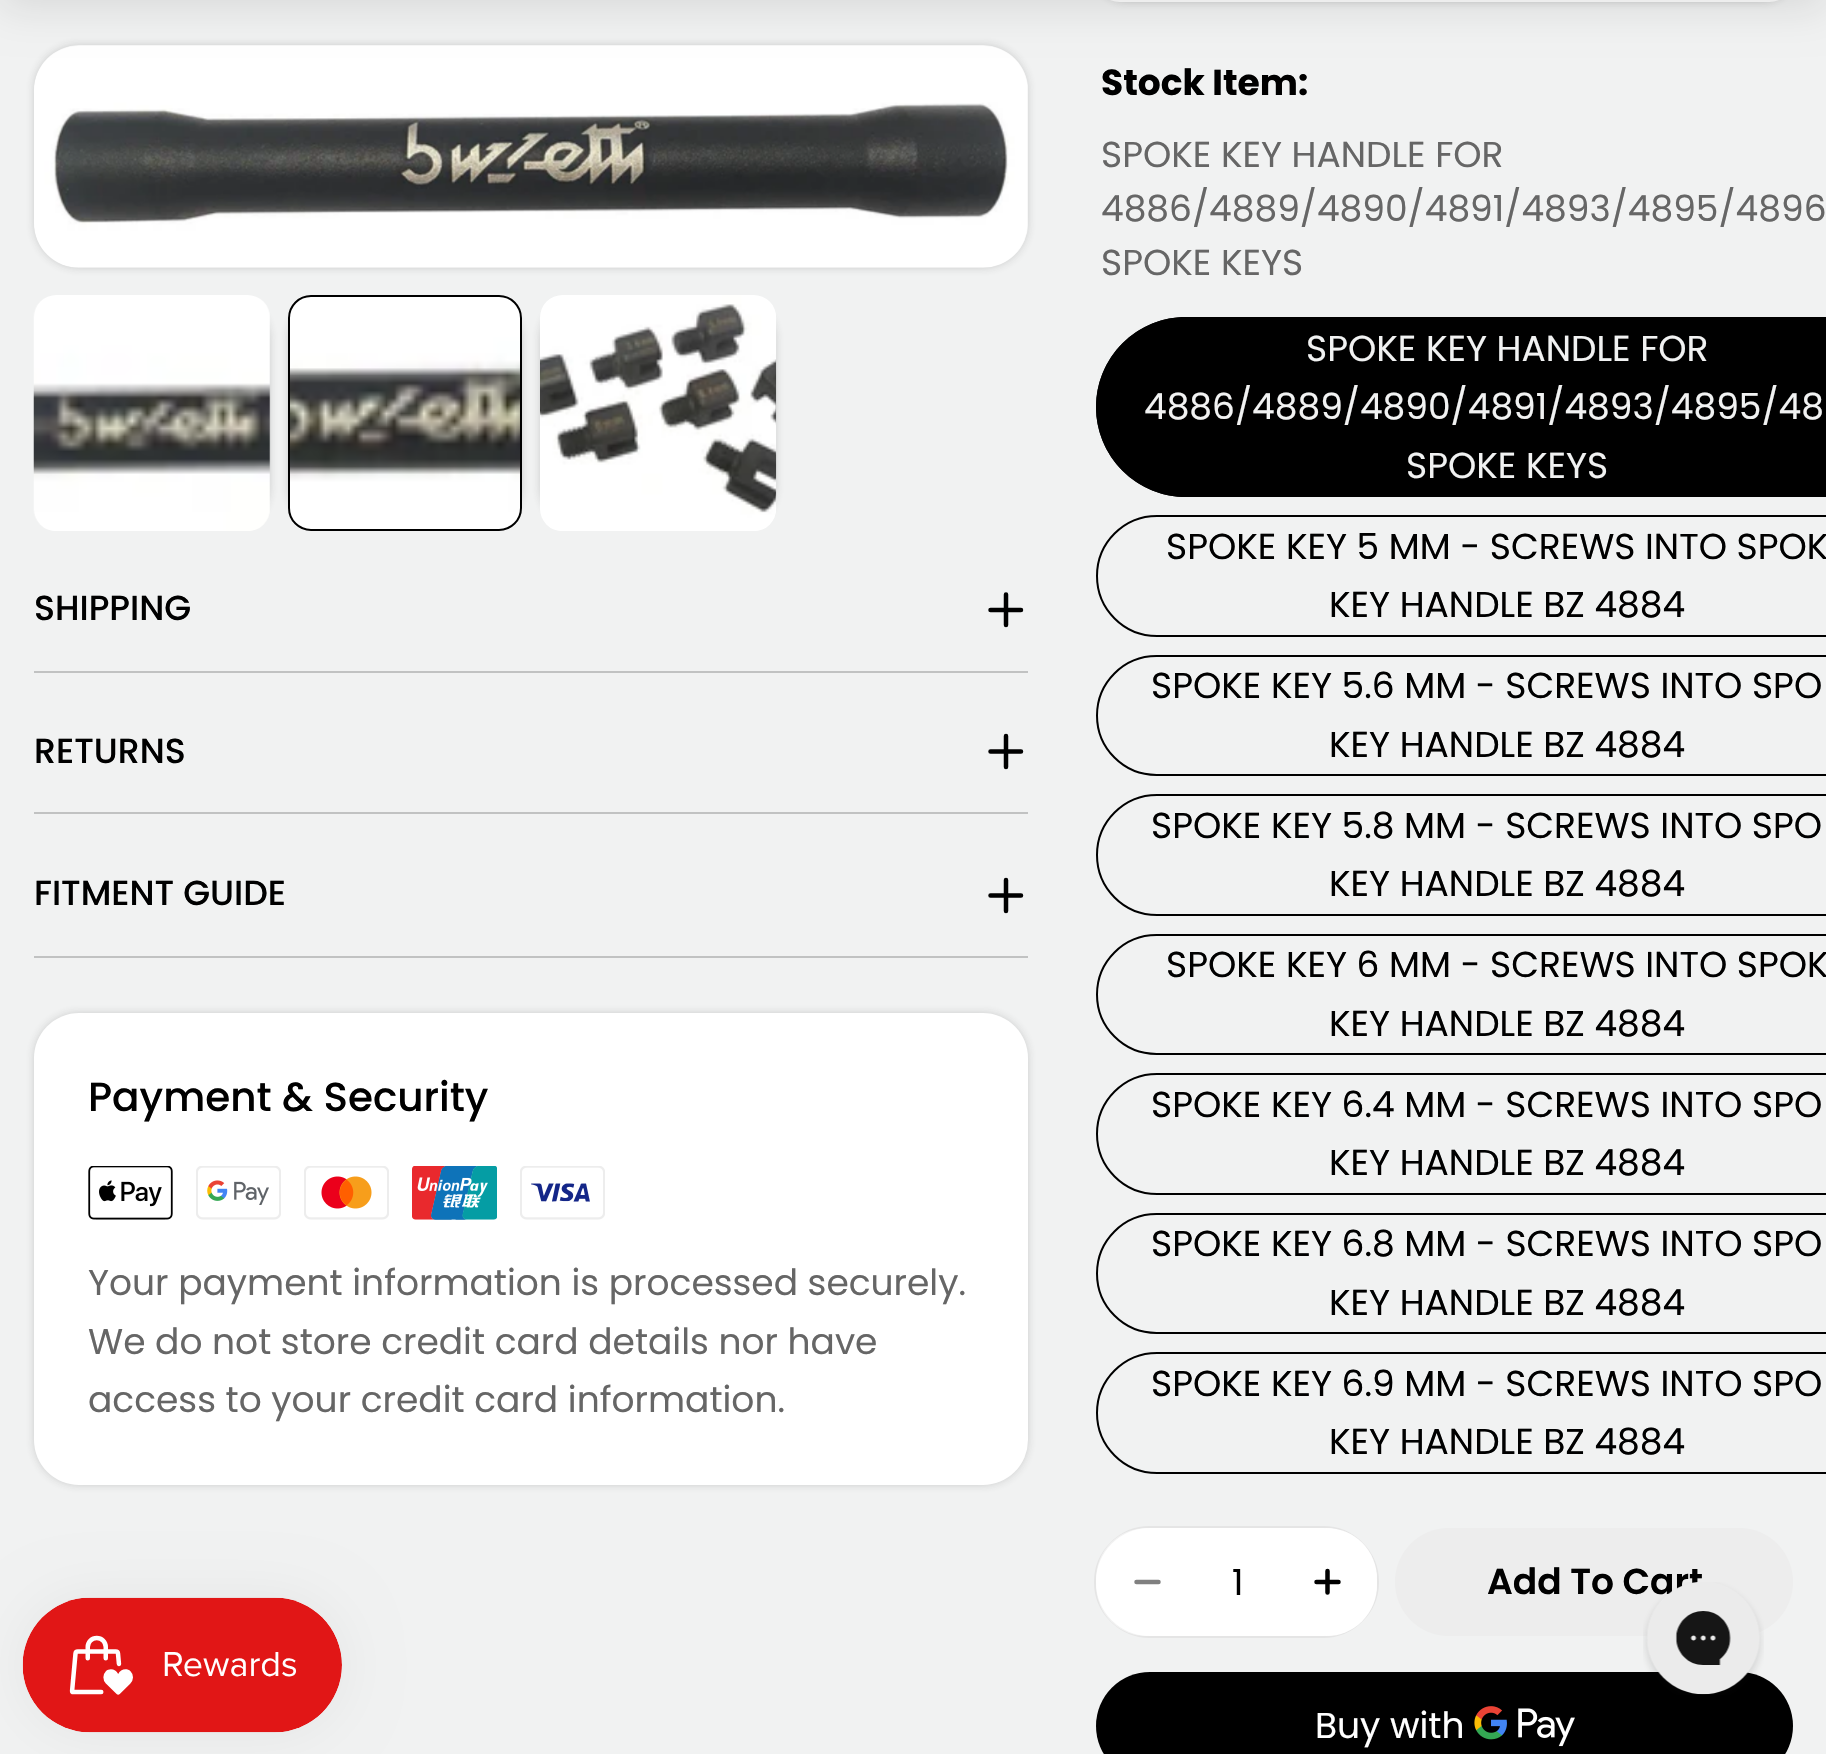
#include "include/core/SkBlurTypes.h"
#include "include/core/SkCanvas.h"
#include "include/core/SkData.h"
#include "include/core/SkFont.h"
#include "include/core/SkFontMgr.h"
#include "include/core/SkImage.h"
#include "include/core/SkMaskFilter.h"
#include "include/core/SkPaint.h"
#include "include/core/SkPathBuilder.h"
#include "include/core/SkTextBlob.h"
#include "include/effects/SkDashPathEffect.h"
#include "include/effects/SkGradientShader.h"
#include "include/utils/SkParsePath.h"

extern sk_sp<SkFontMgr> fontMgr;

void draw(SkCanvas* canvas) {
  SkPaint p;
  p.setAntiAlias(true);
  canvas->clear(SkColorSetRGB(241, 242, 242));
  p.setColor(SkColorSetARGB(51, 55, 55, 55));
  p.setMaskFilter(SkMaskFilter::MakeBlur(kNormal_SkBlurStyle, 4.5f));
  canvas->drawRoundRect(SkRect::MakeLTRB(34, 45, 1028, 268), 45, 45, p);
  p.setMaskFilter(nullptr);
  canvas->drawImageRect(SkImages::DeferredFromEncodedData(SkData::MakeFromFileName("images/1.png")), SkRect::MakeLTRB(34, 45, 1028, 268), SkSamplingOptions());
  p.setMaskFilter(SkMaskFilter::MakeBlur(kNormal_SkBlurStyle, 4.5f));
  canvas->drawRoundRect(SkRect::MakeLTRB(1096, -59, 1793, 2), 45, 45, p);
  p.setMaskFilter(nullptr);
  p.setColor(SK_ColorWHITE);
  canvas->drawRoundRect(SkRect::MakeLTRB(1096, -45, 1793, 2), 45, 45, p);
  p.setColor(SkColorSetARGB(26, 0, 0, 0));
  p.setMaskFilter(SkMaskFilter::MakeBlur(kNormal_SkBlurStyle, 20));
  canvas->drawRect(SkRect::MakeLTRB(0, -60, 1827, 9), p);
  p.setMaskFilter(nullptr);
  canvas->save();
  canvas->clipRect(SkRect::MakeLTRB(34, 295, 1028, 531));
  p.setColor(SkColorSetARGB(51, 55, 55, 55));
  p.setMaskFilter(SkMaskFilter::MakeBlur(kNormal_SkBlurStyle, 4.5f));
  canvas->drawRoundRect(SkRect::MakeLTRB(34, 295, 270, 531), 45, 45, p);
  p.setMaskFilter(nullptr);
  canvas->restore();
  canvas->drawImageRect(SkImages::DeferredFromEncodedData(SkData::MakeFromFileName("images/2.png")), SkRect::MakeLTRB(33, 295, 271, 531), SkSamplingOptions());
  canvas->save();
  canvas->clipRect(SkRect::MakeLTRB(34, 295, 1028, 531));
  p.setMaskFilter(SkMaskFilter::MakeBlur(kNormal_SkBlurStyle, 4.5f));
  canvas->drawRoundRect(SkRect::MakeLTRB(288, 295, 522, 531), 45, 45, p);
  p.setMaskFilter(nullptr);
  canvas->restore();
  canvas->drawImageRect(SkImages::DeferredFromEncodedData(SkData::MakeFromFileName("images/3.png")), SkRect::MakeLTRB(288, 295, 522, 531), SkSamplingOptions());
  p.setStyle(SkPaint::kStroke_Style);
  p.setStrokeWidth(2);
  p.setColor(SK_ColorBLACK);
  canvas->drawRoundRect(SkRect::MakeLTRB(289, 296, 521, 530), 22, 22, p);
  canvas->save();
  canvas->clipRect(SkRect::MakeLTRB(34, 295, 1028, 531));
  p.setStyle(SkPaint::kFill_Style);
  p.setColor(SkColorSetARGB(51, 55, 55, 55));
  p.setMaskFilter(SkMaskFilter::MakeBlur(kNormal_SkBlurStyle, 4.5f));
  canvas->drawRoundRect(SkRect::MakeLTRB(540, 295, 776, 531), 45, 45, p);
  p.setMaskFilter(nullptr);
  canvas->restore();
  canvas->drawImageRect(SkImages::DeferredFromEncodedData(SkData::MakeFromFileName("images/4.png")), SkRect::MakeLTRB(540, 295, 777, 531), SkSamplingOptions());
  p.setColor(SkColorSetRGB(193, 194, 194));
  canvas->drawRect(SkRect::MakeLTRB(34, 671, 1028, 673), p);
  p.setStyle(SkPaint::kStroke_Style);
  p.setStrokeWidth(4.5f);
  p.setStrokeCap(SkPaint::kRound_Cap);
  p.setStrokeJoin(SkPaint::kRound_Join);
  p.setColor(SK_ColorBLACK);
  canvas->drawPath(SkPathBuilder().moveTo(990.5f, 610).lineTo(1021, 610).moveTo(1006, 594.5f).lineTo(1006, 625).detach(), p);
  p.setStyle(SkPaint::kFill_Style);
  p.setColor(SkColorSetRGB(193, 194, 194));
  canvas->drawRect(SkRect::MakeLTRB(34, 812, 1028, 814), p);
  p.setStyle(SkPaint::kStroke_Style);
  p.setColor(SK_ColorBLACK);
  canvas->drawPath(SkPathBuilder().moveTo(990.5f, 751.5f).lineTo(1021, 751.5f).moveTo(1006, 736).lineTo(1006, 767).detach(), p);
  p.setStyle(SkPaint::kFill_Style);
  p.setColor(SkColorSetRGB(193, 194, 194));
  canvas->drawRect(SkRect::MakeLTRB(34, 956, 1028, 958), p);
  p.setStyle(SkPaint::kStroke_Style);
  p.setColor(SK_ColorBLACK);
  canvas->drawPath(SkPathBuilder().moveTo(990.5f, 895.5f).lineTo(1021, 895.5f).moveTo(1006, 880).lineTo(1006, 911).detach(), p);
  p.setStyle(SkPaint::kFill_Style);
  p.setColor(SkColorSetARGB(51, 55, 55, 55));
  p.setMaskFilter(SkMaskFilter::MakeBlur(kNormal_SkBlurStyle, 4.5f));
  canvas->drawRoundRect(SkRect::MakeLTRB(34, 1013, 1028, 1485), 45, 45, p);
  p.setMaskFilter(nullptr);
  p.setColor(SK_ColorWHITE);
  canvas->drawRoundRect(SkRect::MakeLTRB(34, 1013, 1028, 1485), 45, 45, p);
  canvas->drawImageRect(SkImages::DeferredFromEncodedData(SkData::MakeFromFileName("images/5.png")), SkRect::MakeLTRB(88, 1166, 173, 1220), SkSamplingOptions());
  canvas->drawImageRect(SkImages::DeferredFromEncodedData(SkData::MakeFromFileName("images/6.png")), SkRect::MakeLTRB(196, 1166, 281, 1220), SkSamplingOptions());
  canvas->drawImageRect(SkImages::DeferredFromEncodedData(SkData::MakeFromFileName("images/7.png")), SkRect::MakeLTRB(304, 1166, 389, 1220), SkSamplingOptions());
  canvas->drawImageRect(SkImages::DeferredFromEncodedData(SkData::MakeFromFileName("images/8.png")), SkRect::MakeLTRB(412, 1166, 497, 1220), SkSamplingOptions());
  canvas->drawImageRect(SkImages::DeferredFromEncodedData(SkData::MakeFromFileName("images/9.png")), SkRect::MakeLTRB(520, 1166, 605, 1220), SkSamplingOptions());
  p.setColor(SK_ColorBLACK);
  canvas->drawPath(SkPathBuilder().moveTo(1186, 317).lineTo(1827, 317).lineTo(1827, 497).lineTo(1186, 497).cubicTo(1136.5f, 497, 1096, 456.5f, 1096, 407).cubicTo(1096, 357.5f, 1136.5f, 317, 1186, 317).close().detach(), p);
  p.setStyle(SkPaint::kStroke_Style);
  p.setStrokeWidth(2);
  p.setStrokeCap(SkPaint::kButt_Cap);
  p.setStrokeJoin(SkPaint::kMiter_Join);
  canvas->drawRoundRect(SkRect::MakeLTRB(1097, 318, 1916, 496), 89, 89, p);
  canvas->drawRoundRect(SkRect::MakeLTRB(1097, 516, 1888, 636), 60, 60, p);
  canvas->drawRoundRect(SkRect::MakeLTRB(1097, 656, 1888, 775), 59.5f, 59.5f, p);
  canvas->drawRoundRect(SkRect::MakeLTRB(1097, 795, 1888, 915), 60, 60, p);
  canvas->drawRoundRect(SkRect::MakeLTRB(1097, 935, 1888, 1054), 59.5f, 59.5f, p);
  canvas->drawRoundRect(SkRect::MakeLTRB(1097, 1074, 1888, 1194), 60, 60, p);
  canvas->drawRoundRect(SkRect::MakeLTRB(1097, 1214, 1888, 1333), 59.5f, 59.5f, p);
  canvas->drawRoundRect(SkRect::MakeLTRB(1097, 1353, 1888, 1473), 60, 60, p);
  p.setColor(SkColorSetRGB(229, 229, 229));
  canvas->drawRoundRect(SkRect::MakeLTRB(1095, 1527, 1378, 1637), 55, 55, p);
  p.setStyle(SkPaint::kFill_Style);
  p.setColor(SK_ColorWHITE);
  canvas->drawRoundRect(SkRect::MakeLTRB(1096, 1528, 1377, 1636), 54, 54, p);
  p.setColor(SkColorSetARGB(128, 255, 255, 255));
  canvas->drawRoundRect(SkRect::MakeLTRB(1096, 1528, 1197, 1636), 50.5f, 50.5f, p);
  p.setStyle(SkPaint::kStroke_Style);
  p.setStrokeWidth(4.5f);
  p.setStrokeCap(SkPaint::kRound_Cap);
  p.setStrokeJoin(SkPaint::kRound_Join);
  p.setColor(SkColorSetRGB(128, 128, 128));
  canvas->drawPath(SkPathBuilder().moveTo(1136.5f, 1582).lineTo(1158.5f, 1582).detach(), p);
  p.setStyle(SkPaint::kFill_Style);
  p.setColor(SK_ColorWHITE);
  canvas->drawRoundRect(SkRect::MakeLTRB(1276, 1528, 1377, 1636), 50.5f, 50.5f, p);
  p.setStyle(SkPaint::kStroke_Style);
  p.setColor(SK_ColorBLACK);
  canvas->drawPath(SkPathBuilder().moveTo(1316.5f, 1582).lineTo(1338.5f, 1582).moveTo(1327.5f, 1571).lineTo(1327.5f, 1592.5f).detach(), p);
  p.setStyle(SkPaint::kFill_Style);
  p.setColor(SkColorSetRGB(237, 237, 237));
  canvas->drawRoundRect(SkRect::MakeLTRB(1395, 1528, 1793, 1636), 54, 54, p);
  p.setColor(SK_ColorBLACK);
  canvas->drawRoundRect(SkRect::MakeLTRB(1096, 1672, 1793, 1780), 54, 54, p);
  canvas->drawImageRect(SkImages::DeferredFromEncodedData(SkData::MakeFromFileName("images/10.png")), SkRect::MakeLTRB(1474, 1706, 1575, 1747), SkSamplingOptions());
  p.setColor(SkColorSetARGB(13, 0, 0, 0));
  p.setMaskFilter(SkMaskFilter::MakeBlur(kNormal_SkBlurStyle, 28));
  canvas->drawRoundRect(SkRect::MakeLTRB(23, 1598, 342, 1733), 67.5f, 67.5f, p);
  p.setMaskFilter(nullptr);
  canvas->drawImageRect(SkImages::DeferredFromEncodedData(SkData::MakeFromFileName("images/11.png")), SkRect::MakeLTRB(22, 1597, 342, 1733), SkSamplingOptions());
  SkFont font1(fontMgr->matchFamilyStyle("Poppins", SkFontStyle(500, SkFontStyle::kNormal_Width, SkFontStyle::kUpright_Slant)), 34.75f);
  font1.setSubpixel(true);
  p.setColor(SK_ColorBLACK);
  canvas->drawString("SHIPPING", 34, 620, font1, p);
  canvas->drawString("RETURNS", 34, 763, font1, p);
  canvas->drawString("FITMENT GUIDE", 34, 905, font1, p);
  SkFont font2(fontMgr->matchFamilyStyle("Poppins", SkFontStyle(500, SkFontStyle::kNormal_Width, SkFontStyle::kUpright_Slant)), 40.5f);
  font2.setSubpixel(true);
  canvas->drawString("Payment & Security", 88, 1111, font2, p);
  SkFont font3(fontMgr->matchFamilyStyle("Poppins", SkFontStyle::Normal()), 36);
  font3.setSubpixel(true);
  p.setColor(SkColorSetRGB(102, 102, 102));
  canvas->drawString("Your payment information is processed securely.", 88, 1295, font3, p);
  canvas->drawString("We do not store credit card details nor have", 88, 1354, font3, p);
  canvas->drawString("access to your credit card information.", 88, 1412, font3, p);
  SkFont font4(fontMgr->matchFamilyStyle("Poppins", SkFontStyle::Bold()), 36);
  font4.setSubpixel(true);
  p.setColor(SK_ColorBLACK);
  canvas->drawString("Stock Item:", 1101, 95, font4, p);
  p.setColor(SkColorSetRGB(102, 102, 102));
  canvas->drawString("SPOKE KEY HANDLE FOR", 1101, 167, font3, p);
  canvas->drawString("4886/4889/4890/4891/4893/4895/4896", 1101, 221, font3, p);
  canvas->drawString("SPOKE KEYS", 1101, 275, font3, p);
  p.setColor(SkColorSetRGB(241, 242, 242));
  canvas->drawString("SPOKE KEY HANDLE FOR", 1306, 361, font3, p);
  canvas->drawString("4886/4889/4890/4891/4893/4895/48", 1144, 419, font3, p);
  canvas->drawString("SPOKE KEYS", 1406, 478, font3, p);
  p.setColor(SK_ColorBLACK);
  canvas->drawString("SPOKE KEY 5 MM - SCREWS INTO SPOK", 1166, 559, font3, p);
  canvas->drawString("KEY HANDLE BZ 4884", 1329, 617, font3, p);
  canvas->drawString("SPOKE KEY 5.6 MM - SCREWS INTO SPO", 1151, 698, font3, p);
  canvas->drawString("KEY HANDLE BZ 4884", 1329, 757, font3, p);
  canvas->drawString("SPOKE KEY 5.8 MM - SCREWS INTO SPO", 1151, 838, font3, p);
  canvas->drawString("KEY HANDLE BZ 4884", 1329, 896, font3, p);
  canvas->drawString("SPOKE KEY 6 MM - SCREWS INTO SPOK", 1166, 977, font3, p);
  canvas->drawString("KEY HANDLE BZ 4884", 1329, 1036, font3, p);
  canvas->drawString("SPOKE KEY 6.4 MM - SCREWS INTO SPO", 1151, 1117, font3, p);
  canvas->drawString("KEY HANDLE BZ 4884", 1329, 1175, font3, p);
  canvas->drawString("SPOKE KEY 6.8 MM - SCREWS INTO SPO", 1151, 1256, font3, p);
  canvas->drawString("KEY HANDLE BZ 4884", 1329, 1315, font3, p);
  canvas->drawString("SPOKE KEY 6.9 MM - SCREWS INTO SPO", 1151, 1396, font3, p);
  canvas->drawString("KEY HANDLE BZ 4884", 1329, 1454, font3, p);
  canvas->drawString("1", 1232, 1595, font3, p);
  SkFont font5(fontMgr->matchFamilyStyle("Poppins", SkFontStyle(600, SkFontStyle::kNormal_Width, SkFontStyle::kUpright_Slant)), 36);
  font5.setSubpixel(true);
  canvas->drawString("Add To Cart", 1487, 1594, font5, p);
  p.setColor(SK_ColorWHITE);
  canvas->drawString("Buy with", 1315, 1738, font3, p);
  canvas->drawImageRect(SkImages::DeferredFromEncodedData(SkData::MakeFromFileName("images/12.png")), SkRect::MakeLTRB(1643, 1582, 1764, 1695), SkSamplingOptions());
}
